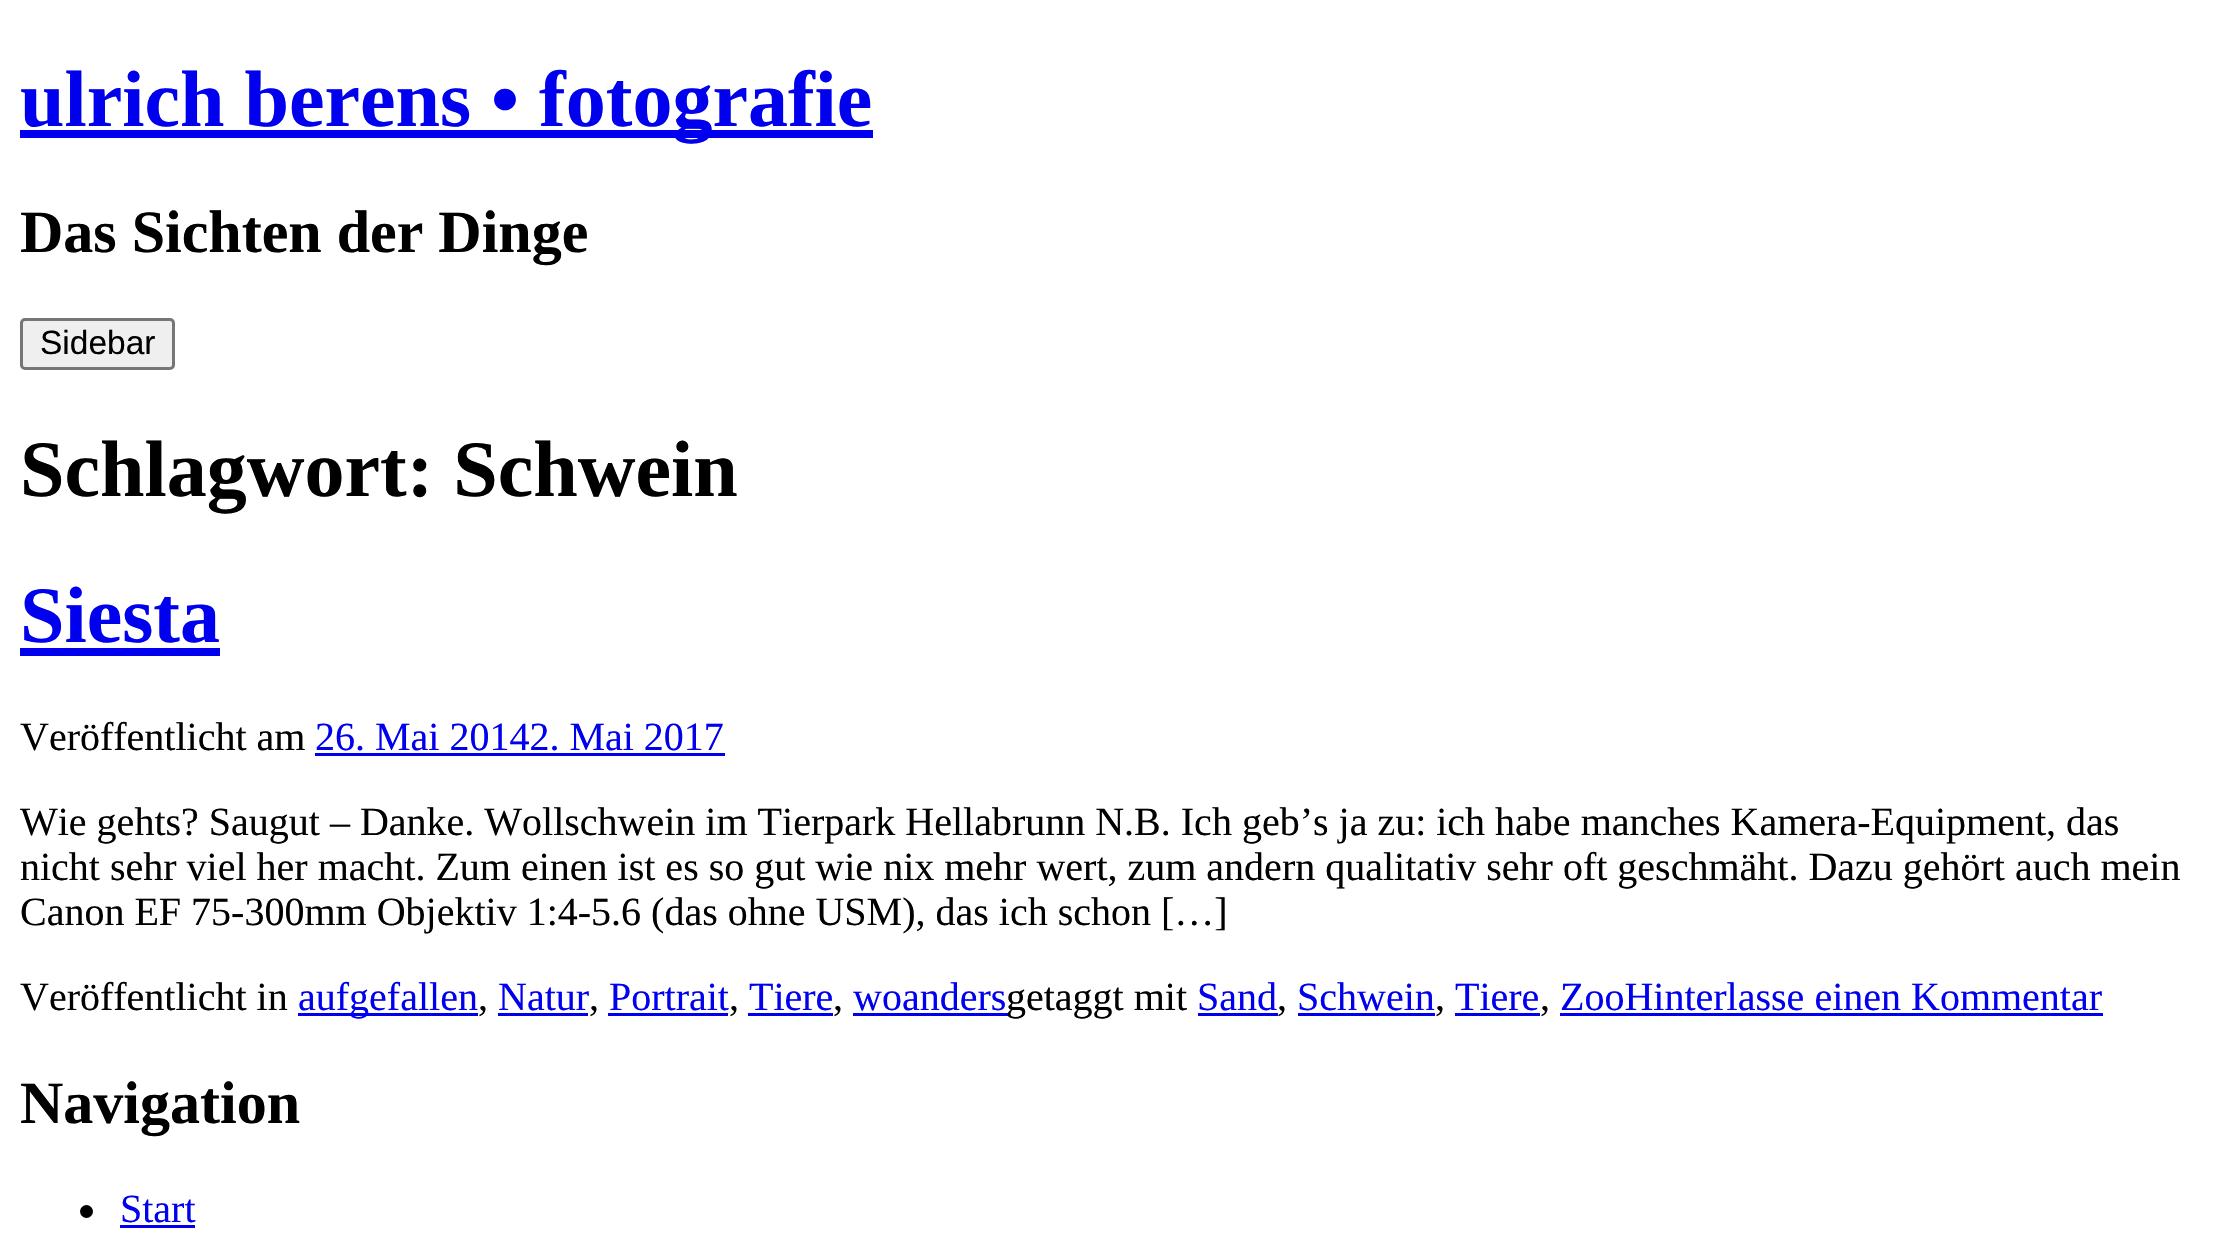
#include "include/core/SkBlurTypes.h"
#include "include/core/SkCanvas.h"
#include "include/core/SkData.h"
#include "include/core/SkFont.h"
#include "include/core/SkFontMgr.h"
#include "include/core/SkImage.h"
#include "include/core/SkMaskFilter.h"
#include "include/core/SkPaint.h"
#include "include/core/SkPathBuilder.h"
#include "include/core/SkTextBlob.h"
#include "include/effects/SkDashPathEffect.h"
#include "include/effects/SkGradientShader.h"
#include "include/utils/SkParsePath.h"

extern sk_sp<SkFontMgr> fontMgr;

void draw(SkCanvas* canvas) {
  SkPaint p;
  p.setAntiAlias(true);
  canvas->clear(SK_ColorWHITE);
  p.setColor(SkColorSetRGB(0, 0, 238));
  canvas->drawRect(SkRect::MakeLTRB(20, 130, 873, 138), p);
  p.setColor(SkColorSetRGB(239, 239, 239));
  canvas->drawRoundRect(SkRect::MakeLTRB(21.5f, 319.5f, 173.5f, 368.5f), 3.5f, 3.5f, p);
  p.setStyle(SkPaint::kStroke_Style);
  p.setStrokeWidth(3);
  p.setColor(SkColorSetRGB(118, 118, 118));
  canvas->drawRoundRect(SkRect::MakeLTRB(21.5f, 319.5f, 173.5f, 368.5f), 3.5f, 3.5f, p);
  p.setStyle(SkPaint::kFill_Style);
  p.setColor(SkColorSetRGB(0, 0, 238));
  canvas->drawRect(SkRect::MakeLTRB(20, 648, 220, 656), p);
  canvas->drawRect(SkRect::MakeLTRB(315, 753, 725, 756), p);
  canvas->drawRect(SkRect::MakeLTRB(298, 1013, 478, 1016), p);
  canvas->drawRect(SkRect::MakeLTRB(498, 1013, 588, 1016), p);
  canvas->drawRect(SkRect::MakeLTRB(608, 1013, 728, 1016), p);
  canvas->drawRect(SkRect::MakeLTRB(748, 1013, 833, 1016), p);
  canvas->drawRect(SkRect::MakeLTRB(853, 1013, 1008, 1016), p);
  canvas->drawRect(SkRect::MakeLTRB(1198, 1013, 1278, 1016), p);
  canvas->drawRect(SkRect::MakeLTRB(1298, 1013, 1435, 1016), p);
  canvas->drawRect(SkRect::MakeLTRB(1455, 1013, 1540, 1016), p);
  canvas->drawRect(SkRect::MakeLTRB(1560, 1013, 2103, 1016), p);
  p.setColor(SK_ColorBLACK);
  canvas->drawCircle(86.5f, 1211.5f, 6.5f, p);
  p.setColor(SkColorSetRGB(0, 0, 238));
  canvas->drawRect(SkRect::MakeLTRB(120, 1225, 195, 1228), p);
  SkFont font1(fontMgr->matchFamilyStyle("Liberation Serif", SkFontStyle::Bold()), 80);
  font1.setSubpixel(true);
  canvas->drawString("ulrich berens • fotografie", 20, 126, font1, p);
  SkFont font2(fontMgr->matchFamilyStyle("Liberation Serif", SkFontStyle::Bold()), 60);
  font2.setSubpixel(true);
  p.setColor(SK_ColorBLACK);
  canvas->drawString("Das Sichten der Dinge", 20, 252, font2, p);
  SkFont font3(fontMgr->matchFamilyStyle("Liberation Sans", SkFontStyle::Normal()), 33.5f);
  font3.setSubpixel(true);
  canvas->drawString("Sidebar", 40, 354, font3, p);
  canvas->drawString("Schlagwort: Schwein", 20, 496, font1, p);
  p.setColor(SkColorSetRGB(0, 0, 238));
  canvas->drawString("Siesta", 20, 642, font1, p);
  SkFont font4(fontMgr->matchFamilyStyle("Liberation Serif", SkFontStyle::Normal()), 40);
  font4.setSubpixel(true);
  p.setColor(SK_ColorBLACK);
  canvas->drawString("Veröffentlicht am", 20, 750, font4, p);
  p.setColor(SkColorSetRGB(0, 0, 238));
  canvas->drawString("26. Mai 20142. Mai 2017", 315, 750, font4, p);
  p.setColor(SK_ColorBLACK);
  canvas->drawString("Wie gehts? Saugut – Danke. Wollschwein im Tierpark Hellabrunn N.B. Ich geb’s ja zu: ich habe manches Kamera-Equipment, das", 20, 835, font4, p);
  canvas->drawString("nicht sehr viel her macht. Zum einen ist es so gut wie nix mehr wert, zum andern qualitativ sehr oft geschmäht. Dazu gehört auch mein", 20, 880, font4, p);
  canvas->drawString("Canon EF 75-300mm Objektiv 1:4-5.6 (das ohne USM), das ich schon […]", 20, 925, font4, p);
  canvas->drawString("Veröffentlicht in", 20, 1010, font4, p);
  p.setColor(SkColorSetRGB(0, 0, 238));
  canvas->drawString("aufgefallen", 298, 1010, font4, p);
  p.setColor(SK_ColorBLACK);
  canvas->drawString(",", 478, 1010, font4, p);
  p.setColor(SkColorSetRGB(0, 0, 238));
  canvas->drawString("Natur", 498, 1010, font4, p);
  p.setColor(SK_ColorBLACK);
  canvas->drawString(",", 589, 1010, font4, p);
  p.setColor(SkColorSetRGB(0, 0, 238));
  canvas->drawString("Portrait", 609, 1010, font4, p);
  p.setColor(SK_ColorBLACK);
  canvas->drawString(",", 729, 1010, font4, p);
  p.setColor(SkColorSetRGB(0, 0, 238));
  canvas->drawString("Tiere", 749, 1010, font4, p);
  p.setColor(SK_ColorBLACK);
  canvas->drawString(",", 833, 1010, font4, p);
  p.setColor(SkColorSetRGB(0, 0, 238));
  canvas->drawString("woanders", 853, 1010, font4, p);
  p.setColor(SK_ColorBLACK);
  canvas->drawString("getaggt mit", 1006, 1010, font4, p);
  p.setColor(SkColorSetRGB(0, 0, 238));
  canvas->drawString("Sand", 1197, 1010, font4, p);
  p.setColor(SK_ColorBLACK);
  canvas->drawString(",", 1277, 1010, font4, p);
  p.setColor(SkColorSetRGB(0, 0, 238));
  canvas->drawString("Schwein", 1297, 1010, font4, p);
  p.setColor(SK_ColorBLACK);
  canvas->drawString(",", 1435, 1010, font4, p);
  p.setColor(SkColorSetRGB(0, 0, 238));
  canvas->drawString("Tiere", 1455, 1010, font4, p);
  p.setColor(SK_ColorBLACK);
  canvas->drawString(",", 1540, 1010, font4, p);
  p.setColor(SkColorSetRGB(0, 0, 238));
  canvas->drawString("ZooHinterlasse einen Kommentar", 1560, 1010, font4, p);
  p.setColor(SK_ColorBLACK);
  canvas->drawString("Navigation", 20, 1123, font2, p);
  p.setColor(SkColorSetRGB(0, 0, 238));
  canvas->drawString("Start", 120, 1222, font4, p);
}
